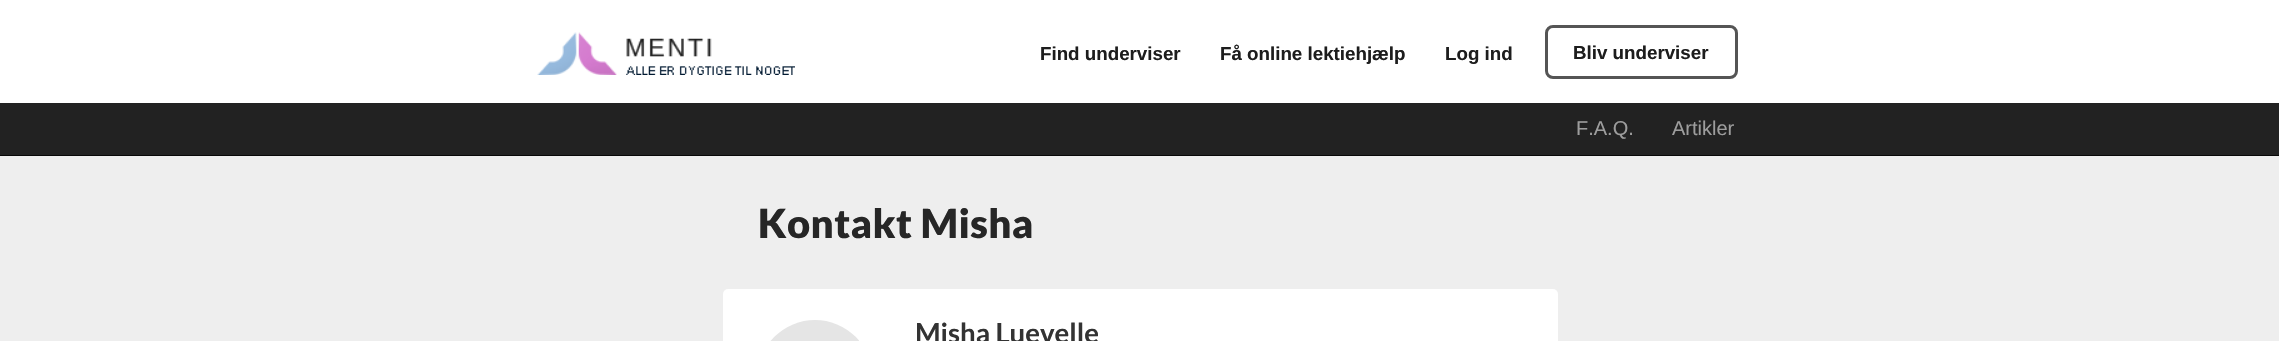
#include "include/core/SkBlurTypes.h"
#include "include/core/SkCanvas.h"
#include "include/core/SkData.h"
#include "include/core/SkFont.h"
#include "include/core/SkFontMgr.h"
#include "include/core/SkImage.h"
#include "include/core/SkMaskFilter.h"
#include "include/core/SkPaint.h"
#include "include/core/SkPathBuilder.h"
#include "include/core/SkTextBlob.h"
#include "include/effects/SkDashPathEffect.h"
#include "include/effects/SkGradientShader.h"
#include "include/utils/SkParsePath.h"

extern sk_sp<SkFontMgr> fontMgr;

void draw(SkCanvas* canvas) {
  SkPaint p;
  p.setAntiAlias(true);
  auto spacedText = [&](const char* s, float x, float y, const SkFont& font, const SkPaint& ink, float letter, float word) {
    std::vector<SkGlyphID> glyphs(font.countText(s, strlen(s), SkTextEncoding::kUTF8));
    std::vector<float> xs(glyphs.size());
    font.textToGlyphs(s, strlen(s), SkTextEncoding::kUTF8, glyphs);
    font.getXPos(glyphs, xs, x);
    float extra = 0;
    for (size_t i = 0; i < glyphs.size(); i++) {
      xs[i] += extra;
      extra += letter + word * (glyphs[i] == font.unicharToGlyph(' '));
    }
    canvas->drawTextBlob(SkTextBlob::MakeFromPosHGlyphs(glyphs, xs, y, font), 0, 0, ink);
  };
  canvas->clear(SK_ColorWHITE);
  canvas->drawImageRect(SkImages::DeferredFromEncodedData(SkData::MakeFromFileName("images/1.png")), SkRect::MakeLTRB(537, 32, 795, 75), SkSamplingOptions());
  p.setStyle(SkPaint::kStroke_Style);
  p.setStrokeWidth(3);
  p.setColor(SkColorSetRGB(85, 85, 85));
  canvas->drawRoundRect(SkRect::MakeLTRB(1546.5f, 26.5f, 1736.5f, 77.5f), 6.5f, 6.5f, p);
  p.setStyle(SkPaint::kFill_Style);
  p.setColor(SkColorSetRGB(34, 34, 34));
  canvas->drawRect(SkRect::MakeLTRB(0, 103, 2279, 155), p);
  p.setColor(SkColorSetRGB(8, 8, 8));
  canvas->drawRect(SkRect::MakeLTRB(0, 155, 2279, 156), p);
  p.setColor(SkColorSetRGB(238, 238, 238));
  canvas->drawRect(SkRect::MakeLTRB(0, 156, 2279, 341), p);
  p.setColor(SK_ColorWHITE);
  canvas->drawRoundRect(SkRect::MakeLTRB(723, 289, 1558, 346), 5, 5, p);
  canvas->drawImageRect(SkImages::DeferredFromEncodedData(SkData::MakeFromFileName("images/2.png")), SkRect::MakeLTRB(770, 320, 859, 341), SkSamplingOptions());
  SkFont font1(fontMgr->matchFamilyStyle("Arimo", SkFontStyle::Bold()), 18.75f);
  font1.setSubpixel(true);
  p.setColor(SkColorSetRGB(29, 29, 29));
  canvas->drawString("Find underviser", 1040, 60, font1, p);
  canvas->drawString("Få online lektiehjælp", 1220, 60, font1, p);
  canvas->drawString("Log ind", 1445, 60, font1, p);
  canvas->drawString("Bliv underviser", 1573, 59, font1, p);
  SkFont font2(fontMgr->matchFamilyStyle("Liberation Sans", SkFontStyle::Normal()), 20);
  font2.setSubpixel(true);
  p.setColor(SkColorSetRGB(157, 157, 157));
  canvas->drawString("F.A.Q.", 1576, 135, font2, p);
  canvas->drawString("Artikler", 1672, 135, font2, p);
  SkFont font3(fontMgr->matchFamilyStyle("Lato", SkFontStyle(900, SkFontStyle::kNormal_Width, SkFontStyle::kUpright_Slant)), 40);
  font3.setSubpixel(true);
  p.setColor(SkColorSetRGB(38, 38, 38));
  spacedText("Kontakt Misha", 758, 238, font3, p, 0.4f, 0);
  SkFont font4(fontMgr->matchFamilyStyle("Lato", SkFontStyle::Bold()), 27.5f);
  font4.setSubpixel(true);
  p.setColor(SkColorSetRGB(51, 51, 51));
  canvas->drawString("Misha Luevelle", 915, 343, font4, p);
}
